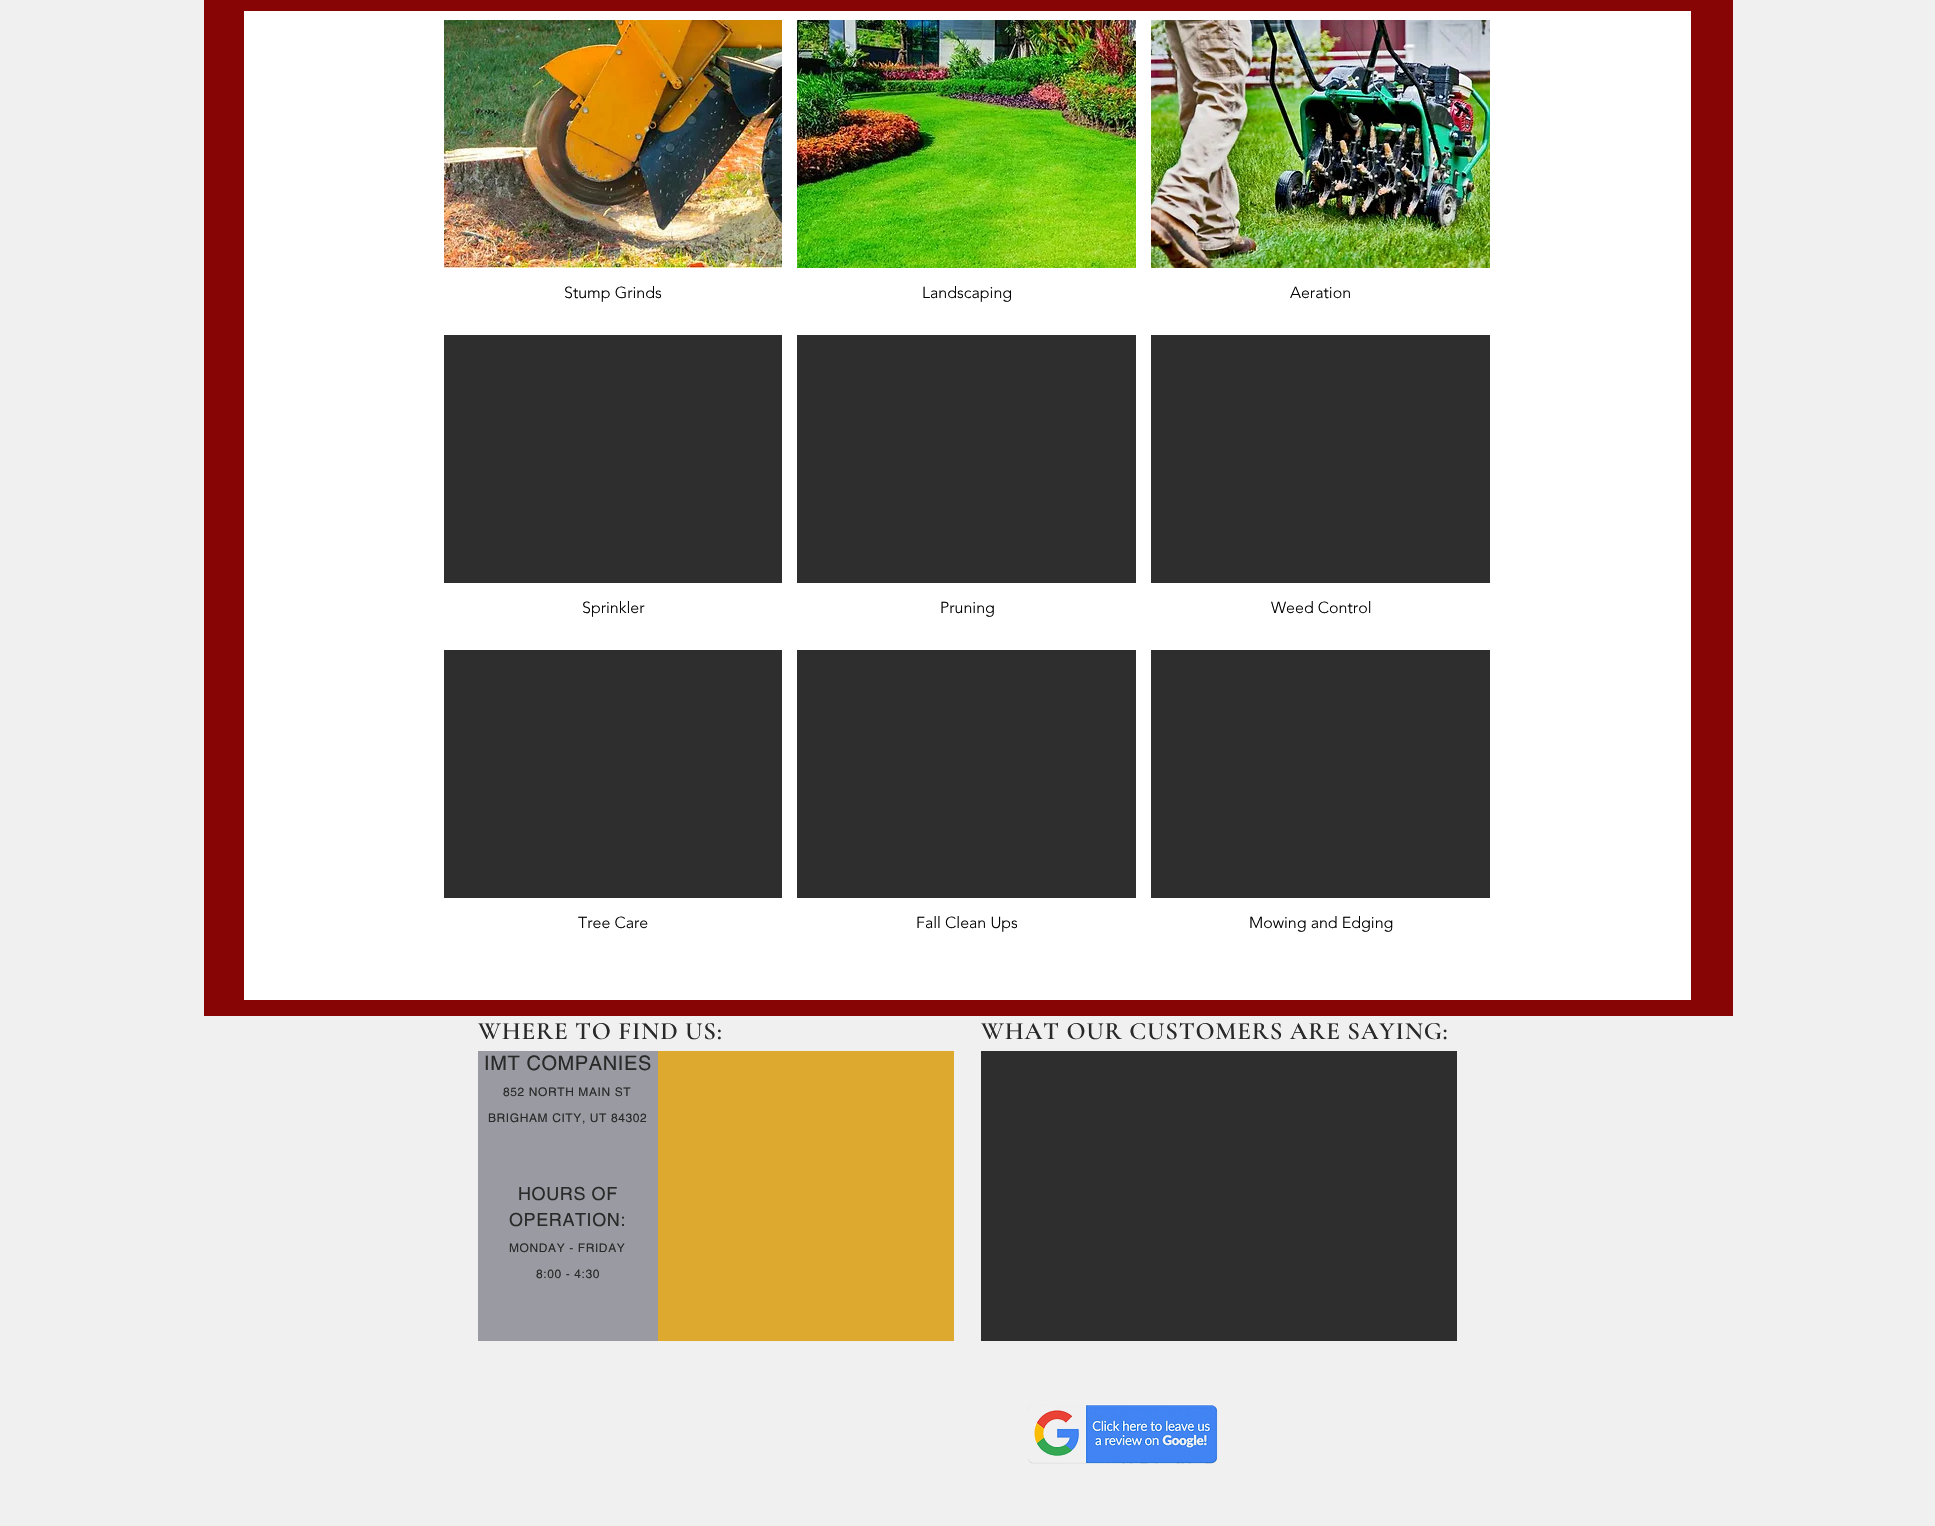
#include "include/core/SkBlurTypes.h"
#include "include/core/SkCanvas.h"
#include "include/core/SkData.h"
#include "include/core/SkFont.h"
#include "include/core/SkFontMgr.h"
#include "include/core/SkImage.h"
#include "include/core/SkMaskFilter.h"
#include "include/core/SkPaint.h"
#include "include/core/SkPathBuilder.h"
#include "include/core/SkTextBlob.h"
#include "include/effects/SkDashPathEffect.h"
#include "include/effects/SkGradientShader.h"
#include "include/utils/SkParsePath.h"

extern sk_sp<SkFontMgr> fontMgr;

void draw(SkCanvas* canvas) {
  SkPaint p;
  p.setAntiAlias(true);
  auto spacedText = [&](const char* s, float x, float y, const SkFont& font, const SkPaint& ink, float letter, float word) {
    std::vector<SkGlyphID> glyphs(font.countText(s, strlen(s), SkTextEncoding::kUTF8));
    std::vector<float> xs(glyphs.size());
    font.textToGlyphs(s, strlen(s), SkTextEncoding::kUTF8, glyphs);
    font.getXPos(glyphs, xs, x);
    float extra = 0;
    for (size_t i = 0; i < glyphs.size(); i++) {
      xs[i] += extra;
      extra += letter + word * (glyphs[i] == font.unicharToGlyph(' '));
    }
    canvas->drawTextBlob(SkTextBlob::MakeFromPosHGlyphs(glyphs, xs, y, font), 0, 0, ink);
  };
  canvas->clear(SkColorSetRGB(240, 240, 240));
  p.setColor(SkColorSetRGB(136, 5, 5));
  canvas->drawRect(SkRect::MakeLTRB(204, 0, 1733, 1016), p);
  p.setColor(SK_ColorWHITE);
  canvas->drawRect(SkRect::MakeLTRB(244, 11, 1691, 1000), p);
  canvas->drawImageRect(SkImages::DeferredFromEncodedData(SkData::MakeFromFileName("images/1.png")), SkRect::MakeLTRB(444, 20, 782, 268), SkSamplingOptions());
  canvas->drawImageRect(SkImages::DeferredFromEncodedData(SkData::MakeFromFileName("images/2.png")), SkRect::MakeLTRB(797, 20, 1136, 268), SkSamplingOptions());
  canvas->drawImageRect(SkImages::DeferredFromEncodedData(SkData::MakeFromFileName("images/3.png")), SkRect::MakeLTRB(1151, 20, 1490, 268), SkSamplingOptions());
  p.setColor(SkColorSetRGB(47, 46, 46));
  canvas->drawRect(SkRect::MakeLTRB(444, 335, 782, 583), p);
  canvas->drawRect(SkRect::MakeLTRB(797, 335, 1136, 583), p);
  canvas->drawRect(SkRect::MakeLTRB(1151, 335, 1490, 583), p);
  canvas->drawRect(SkRect::MakeLTRB(444, 650, 782, 898), p);
  canvas->drawRect(SkRect::MakeLTRB(797, 650, 1136, 898), p);
  canvas->drawRect(SkRect::MakeLTRB(1151, 650, 1490, 898), p);
  p.setColor(SkColorSetRGB(154, 155, 162));
  canvas->drawRect(SkRect::MakeLTRB(478, 1051, 658, 1341), p);
  p.setColor(SkColorSetRGB(221, 169, 46));
  canvas->drawRect(SkRect::MakeLTRB(658, 1051, 954, 1341), p);
  p.setColor(SkColorSetRGB(47, 46, 46));
  canvas->drawRect(SkRect::MakeLTRB(981, 1051, 1457, 1341), p);
  canvas->drawImageRect(SkImages::DeferredFromEncodedData(SkData::MakeFromFileName("images/4.png")), SkRect::MakeLTRB(1028, 1404, 1218, 1464), SkSamplingOptions());
  SkFont font1(fontMgr->matchFamilyStyle("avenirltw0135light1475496", SkFontStyle(300, SkFontStyle::kNormal_Width, SkFontStyle::kUpright_Slant)), 16);
  font1.setSubpixel(true);
  p.setColor(SK_ColorBLACK);
  canvas->drawString("Stump Grinds", 564, 298, font1, p);
  canvas->drawString("Landscaping", 922, 298, font1, p);
  canvas->drawString("Aeration", 1290, 298, font1, p);
  canvas->drawString("Sprinkler", 582, 613, font1, p);
  canvas->drawString("Pruning", 940, 613, font1, p);
  canvas->drawString("Weed Control", 1271, 613, font1, p);
  canvas->drawString("Tree Care", 578, 928, font1, p);
  canvas->drawString("Fall Clean Ups", 916, 928, font1, p);
  canvas->drawString("Mowing and Edging", 1249, 928, font1, p);
  SkFont font2(fontMgr->matchFamilyStyle("Cormorant Garamond", SkFontStyle(600, SkFontStyle::kNormal_Width, SkFontStyle::kUpright_Slant)), 25);
  font2.setSubpixel(true);
  p.setColor(SkColorSetRGB(41, 41, 41));
  spacedText("WHERE TO FIND US:", 478, 1039, font2, p, 0.75f, 0);
  spacedText("WHAT OUR CUSTOMERS ARE SAYING:", 981, 1039, font2, p, 0.75f, 0);
  SkFont font3(fontMgr->matchFamilyStyle("helvetica", SkFontStyle::Normal()), 20);
  font3.setSubpixel(true);
  spacedText("IMT COMPANIES", 484, 1070, font3, p, 0.6f, 0);
  SkFont font4(fontMgr->matchFamilyStyle("helvetica", SkFontStyle::Normal()), 12);
  font4.setSubpixel(true);
  spacedText("852 NORTH MAIN ST", 503, 1096, font4, p, 0.6f, 0);
  spacedText("BRIGHAM CITY, UT 84302", 488, 1122, font4, p, 0.6f, 0);
  SkFont font5(fontMgr->matchFamilyStyle("helvetica", SkFontStyle::Normal()), 18);
  font5.setSubpixel(true);
  spacedText("HOURS OF", 518, 1200, font5, p, 0.6f, 0);
  spacedText("OPERATION:", 509, 1226, font5, p, 0.6f, 0);
  spacedText("MONDAY - FRIDAY", 509, 1252, font4, p, 0.6f, 0);
  spacedText("8:00 - 4:30", 536, 1278, font4, p, 0.6f, 0);
}
